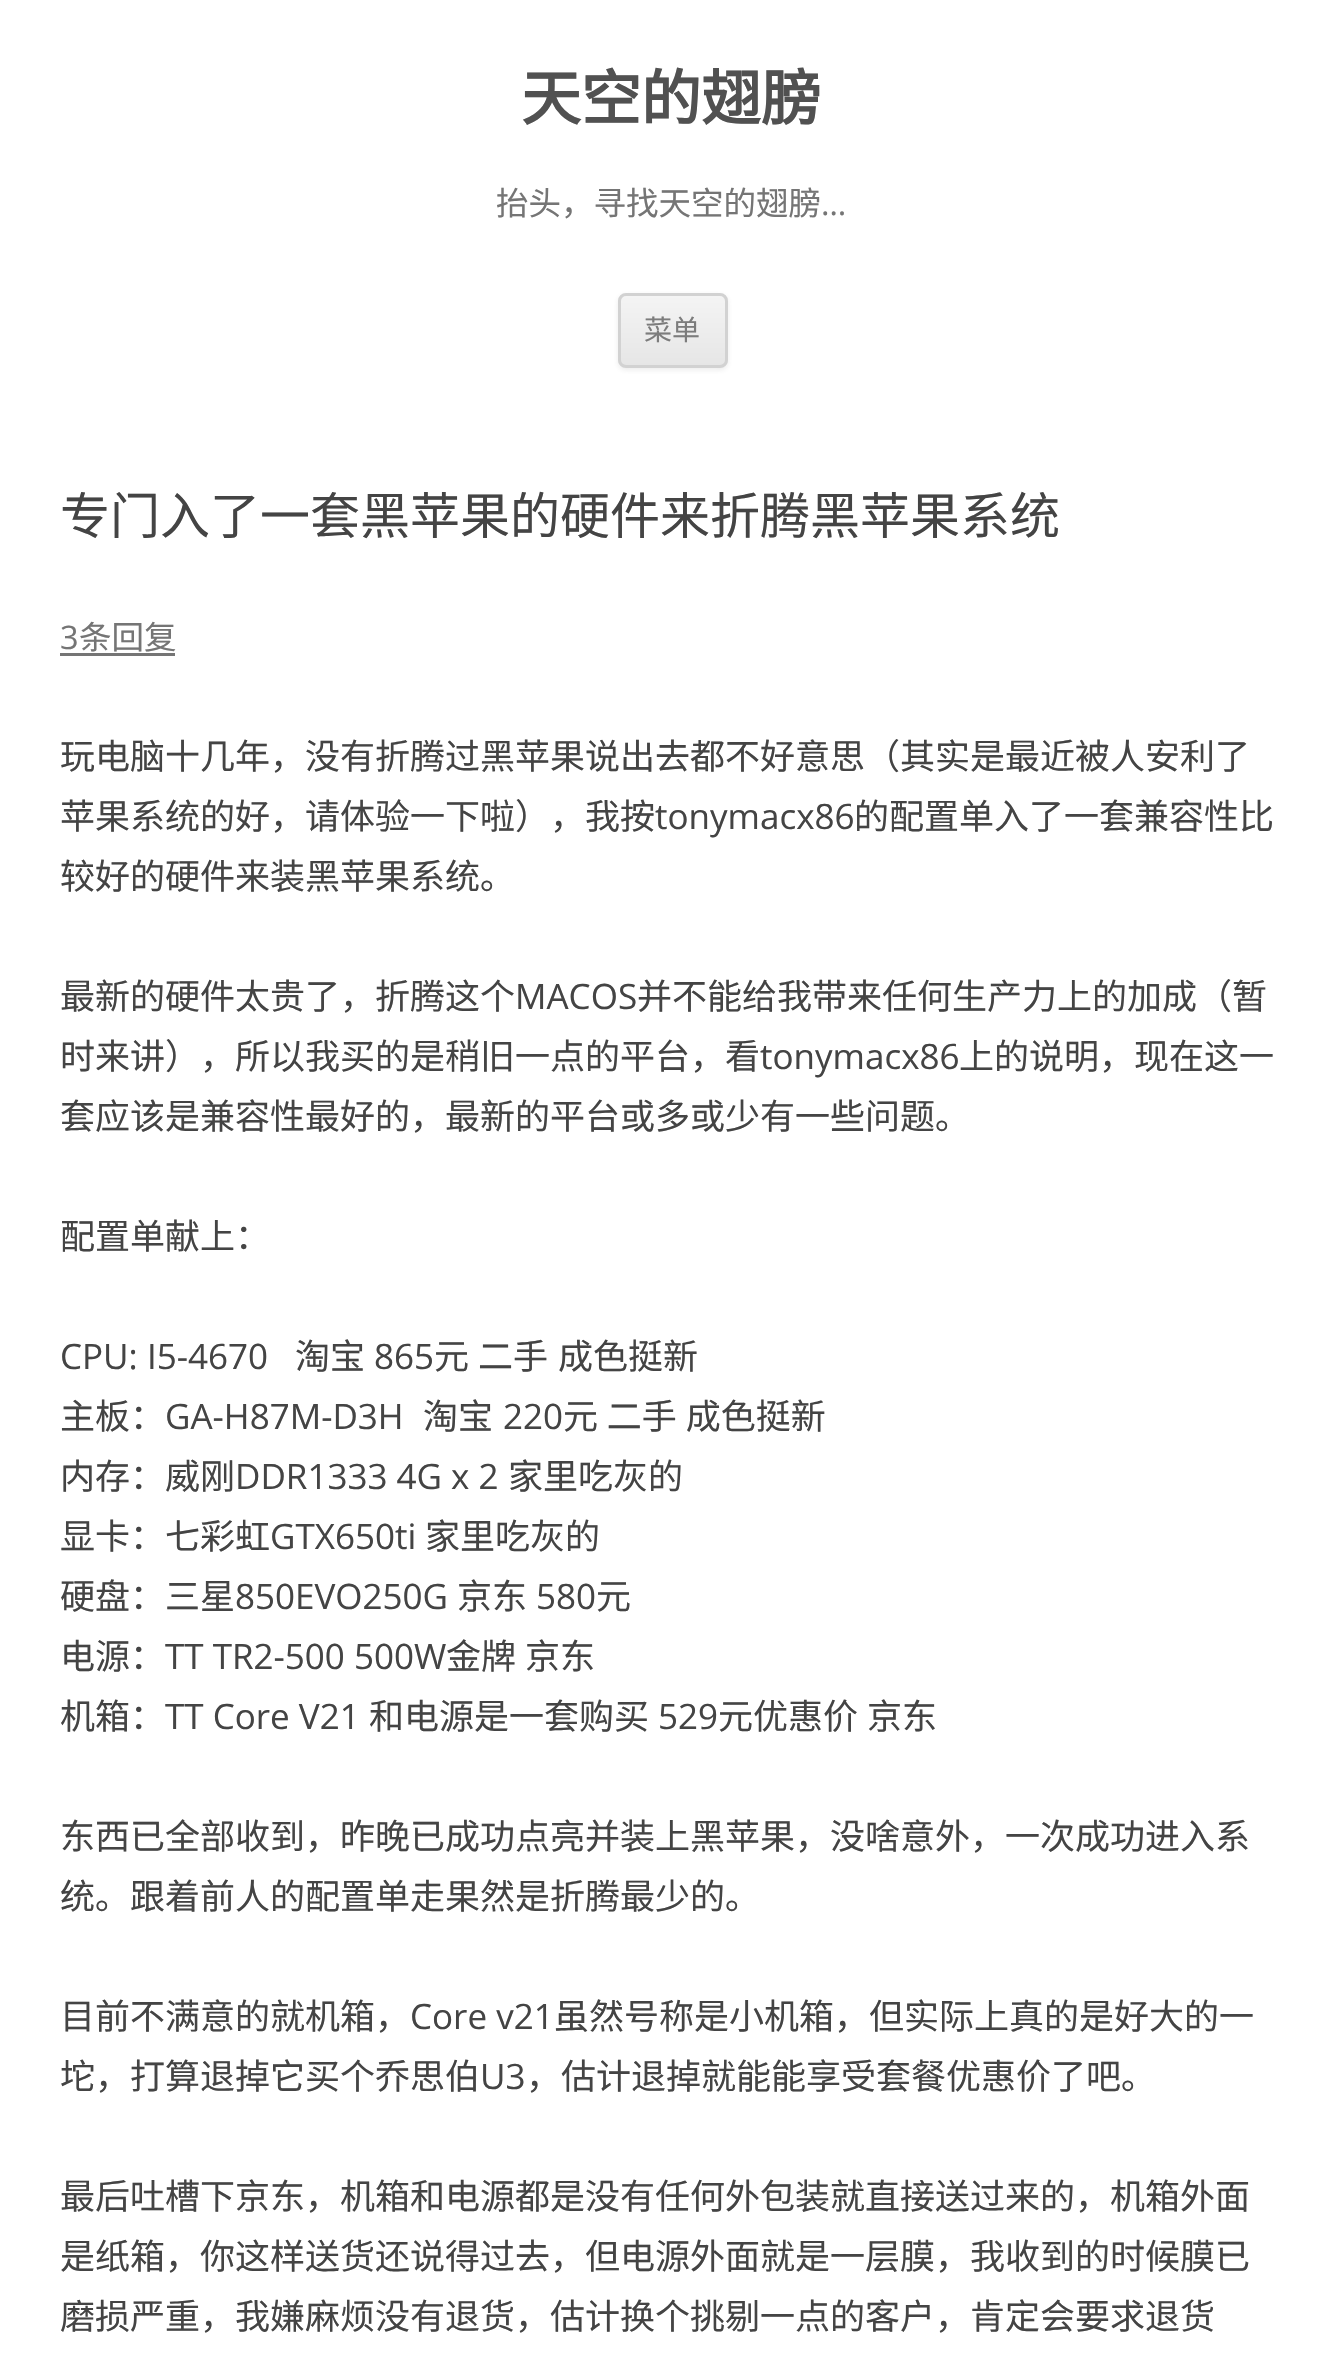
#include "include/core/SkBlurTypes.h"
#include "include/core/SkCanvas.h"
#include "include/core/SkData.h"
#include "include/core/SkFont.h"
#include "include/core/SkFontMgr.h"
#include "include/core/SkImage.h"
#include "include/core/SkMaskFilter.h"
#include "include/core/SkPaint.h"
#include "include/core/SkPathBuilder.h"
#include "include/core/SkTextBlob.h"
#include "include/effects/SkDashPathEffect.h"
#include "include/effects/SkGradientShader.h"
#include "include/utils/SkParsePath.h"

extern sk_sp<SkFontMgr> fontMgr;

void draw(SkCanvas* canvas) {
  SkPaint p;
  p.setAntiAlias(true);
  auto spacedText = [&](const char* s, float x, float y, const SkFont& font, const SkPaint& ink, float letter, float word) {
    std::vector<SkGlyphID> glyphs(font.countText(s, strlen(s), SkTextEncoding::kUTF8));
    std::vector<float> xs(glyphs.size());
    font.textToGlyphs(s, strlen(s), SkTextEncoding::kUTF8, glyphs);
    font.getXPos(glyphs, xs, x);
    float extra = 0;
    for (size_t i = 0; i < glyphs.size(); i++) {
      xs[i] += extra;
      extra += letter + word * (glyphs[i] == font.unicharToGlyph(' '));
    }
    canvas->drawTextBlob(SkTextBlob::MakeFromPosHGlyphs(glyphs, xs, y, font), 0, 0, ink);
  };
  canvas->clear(SK_ColorWHITE);
  p.setColor(SkColorSetARGB(26, 64, 64, 64));
  p.setMaskFilter(SkMaskFilter::MakeBlur(kNormal_SkBlurStyle, 2.5f));
  canvas->drawRoundRect(SkRect::MakeLTRB(618, 295, 728, 370), 8, 8, p);
  p.setMaskFilter(nullptr);
  canvas->save();
  canvas->clipPath(SkPathBuilder().moveTo(626, 293).lineTo(720, 293).cubicTo(724.5f, 293, 728, 296.5f, 728, 301).lineTo(728, 360).cubicTo(728, 364.5f, 724.5f, 368, 720, 368).lineTo(626, 368).cubicTo(621.5f, 368, 618, 364.5f, 618, 360).lineTo(618, 301).cubicTo(618, 296.5f, 621.5f, 293, 626, 293).close().detach(), true);
  {
    const SkColor colors[] = {SkColorSetRGB(244, 244, 244), SkColorSetRGB(230, 230, 230)};
    const float stops[] = {0, 1};
    const SkPoint ends[] = {{673, 295}, {673, 365}};
    p.setShader(SkGradientShader::MakeLinear(ends, colors, stops, 2, SkTileMode::kClamp));
    p.setAlpha(255);
  }
  canvas->drawRect(SkRect::MakeLTRB(618, 295, 728, 365), p);
  canvas->restore();
  p.setStyle(SkPaint::kStroke_Style);
  p.setStrokeWidth(3);
  p.setShader(nullptr);
  p.setColor(SkColorSetRGB(210, 210, 210));
  canvas->drawRoundRect(SkRect::MakeLTRB(619.5f, 294.5f, 726.5f, 366.5f), 6.5f, 6.5f, p);
  p.setStyle(SkPaint::kFill_Style);
  p.setColor(SkColorSetRGB(117, 117, 117));
  canvas->drawRect(SkRect::MakeLTRB(60, 653, 175, 656), p);
  SkFont font1(fontMgr->matchFamilyStyle("Noto Sans CJK SC", SkFontStyle::Bold()), 60);
  font1.setSubpixel(true);
  p.setColor(SkColorSetRGB(81, 81, 81));
  canvas->drawString("天空的翅膀", 521, 120, font1, p);
  SkFont font2(fontMgr->matchFamilyStyle("Noto Sans CJK SC", SkFontStyle::Normal()), 32.5f);
  font2.setSubpixel(true);
  p.setColor(SkColorSetRGB(117, 117, 117));
  canvas->drawString("抬头，寻找天空的翅膀", 496, 215, font2, p);
  SkFont font3(fontMgr->matchFamilyStyle("Open Sans", SkFontStyle::Normal()), 32.5f);
  font3.setSubpixel(true);
  canvas->drawString("…", 821, 215, font3, p);
  SkFont font4(fontMgr->matchFamilyStyle("Noto Sans CJK SC", SkFontStyle::Normal()), 28);
  font4.setSubpixel(true);
  p.setColor(SkColorSetRGB(124, 124, 124));
  canvas->drawString("菜单", 644, 340, font4, p);
  SkFont font5(fontMgr->matchFamilyStyle("Noto Sans CJK SC", SkFontStyle::Normal()), 50);
  font5.setSubpixel(true);
  p.setColor(SkColorSetRGB(68, 68, 68));
  canvas->drawString("专门入了一套黑苹果的硬件来折腾黑苹果系统", 60, 534, font5, p);
  p.setColor(SkColorSetRGB(117, 117, 117));
  canvas->drawString("3", 60, 649, font3, p);
  canvas->drawString("条回复", 79, 649, font2, p);
  SkFont font6(fontMgr->matchFamilyStyle("Noto Sans CJK SC", SkFontStyle::Normal()), 35);
  font6.setSubpixel(true);
  p.setColor(SkColorSetRGB(68, 68, 68));
  canvas->drawString("玩电脑十几年，没有折腾过黑苹果说出去都不好意思（其实是最近被人安利了", 60, 769, font6, p);
  canvas->drawString("苹果系统的好，请体验一下啦），我按", 60, 829, font6, p);
  SkFont font7(fontMgr->matchFamilyStyle("Open Sans", SkFontStyle::Normal()), 35);
  font7.setSubpixel(true);
  canvas->drawString("tonymacx86", 655, 829, font7, p);
  canvas->drawString("的配置单入了一套兼容性比", 854, 829, font6, p);
  canvas->drawString("较好的硬件来装黑苹果系统。", 60, 889, font6, p);
  canvas->drawString("最新的硬件太贵了，折腾这个", 60, 1009, font6, p);
  canvas->drawString("MACOS", 515, 1009, font7, p);
  canvas->drawString("并不能给我带来任何生产力上的加成（暂", 637, 1009, font6, p);
  canvas->drawString("时来讲），所以我买的是稍旧一点的平台，看", 60, 1069, font6, p);
  canvas->drawString("tonymacx86", 760, 1069, font7, p);
  canvas->drawString("上的说明，现在这一", 959, 1069, font6, p);
  canvas->drawString("套应该是兼容性最好的，最新的平台或多或少有一些问题。", 60, 1129, font6, p);
  canvas->drawString("配置单献上：", 60, 1249, font6, p);
  canvas->drawString("CPU: I5-4670", 60, 1369, font7, p);
  canvas->drawString("淘宝", 295, 1369, font6, p);
  canvas->drawString("865", 374, 1369, font7, p);
  canvas->drawString("元", 434, 1369, font6, p);
  canvas->drawString("二手", 478, 1369, font6, p);
  canvas->drawString("成色挺新", 558, 1369, font6, p);
  canvas->drawString("主板：", 60, 1429, font6, p);
  canvas->drawString("GA-H87M-D3H", 165, 1429, font7, p);
  canvas->drawString("淘宝", 423, 1429, font6, p);
  canvas->drawString("220", 503, 1429, font7, p);
  spacedText("元 二手 成色挺新", 563, 1429, font6, p, 0, 1);
  canvas->drawString("内存：威刚", 60, 1489, font6, p);
  canvas->drawString("DDR1333 4G x 2", 235, 1489, font7, p);
  canvas->drawString("家里吃灰的", 508, 1489, font6, p);
  canvas->drawString("显卡：七彩虹", 60, 1549, font6, p);
  canvas->drawString("GTX650ti", 270, 1549, font7, p);
  canvas->drawString("家里吃灰的", 425, 1549, font6, p);
  canvas->drawString("硬盘：三星", 60, 1609, font6, p);
  canvas->drawString("850EVO250G", 235, 1609, font7, p);
  canvas->drawString("京东", 457, 1609, font6, p);
  canvas->drawString("580", 536, 1609, font7, p);
  canvas->drawString("元", 596, 1609, font6, p);
  canvas->drawString("电源：", 60, 1669, font6, p);
  canvas->drawString("TT TR2-500 500W", 165, 1669, font7, p);
  canvas->drawString("金牌", 446, 1669, font6, p);
  canvas->drawString("京东", 525, 1669, font6, p);
  canvas->drawString("机箱：", 60, 1729, font6, p);
  canvas->drawString("TT Core V21", 165, 1729, font7, p);
  canvas->drawString("和电源是一套购买", 369, 1729, font6, p);
  canvas->drawString("529", 658, 1729, font7, p);
  canvas->drawString("元优惠价", 718, 1729, font6, p);
  canvas->drawString("京东", 867, 1729, font6, p);
  canvas->drawString("东西已全部收到，昨晚已成功点亮并装上黑苹果，没啥意外，一次成功进入系", 60, 1849, font6, p);
  canvas->drawString("统。跟着前人的配置单走果然是折腾最少的。", 60, 1909, font6, p);
  canvas->drawString("目前不满意的就机箱，", 60, 2029, font6, p);
  canvas->drawString("Core v21", 410, 2029, font7, p);
  canvas->drawString("虽然号称是小机箱，但实际上真的是好大的一", 554, 2029, font6, p);
  canvas->drawString("坨，打算退掉它买个乔思伯", 60, 2089, font6, p);
  canvas->drawString("U3", 480, 2089, font7, p);
  canvas->drawString("，估计退掉就能能享受套餐优惠价了吧。", 526, 2089, font6, p);
  canvas->drawString("最后吐槽下京东，机箱和电源都是没有任何外包装就直接送过来的，机箱外面", 60, 2209, font6, p);
  canvas->drawString("是纸箱，你这样送货还说得过去，但电源外面就是一层膜，我收到的时候膜已", 60, 2269, font6, p);
  canvas->drawString("磨损严重，我嫌麻烦没有退货，估计换个挑剔一点的客户，肯定会要求退货", 60, 2329, font6, p);
}
